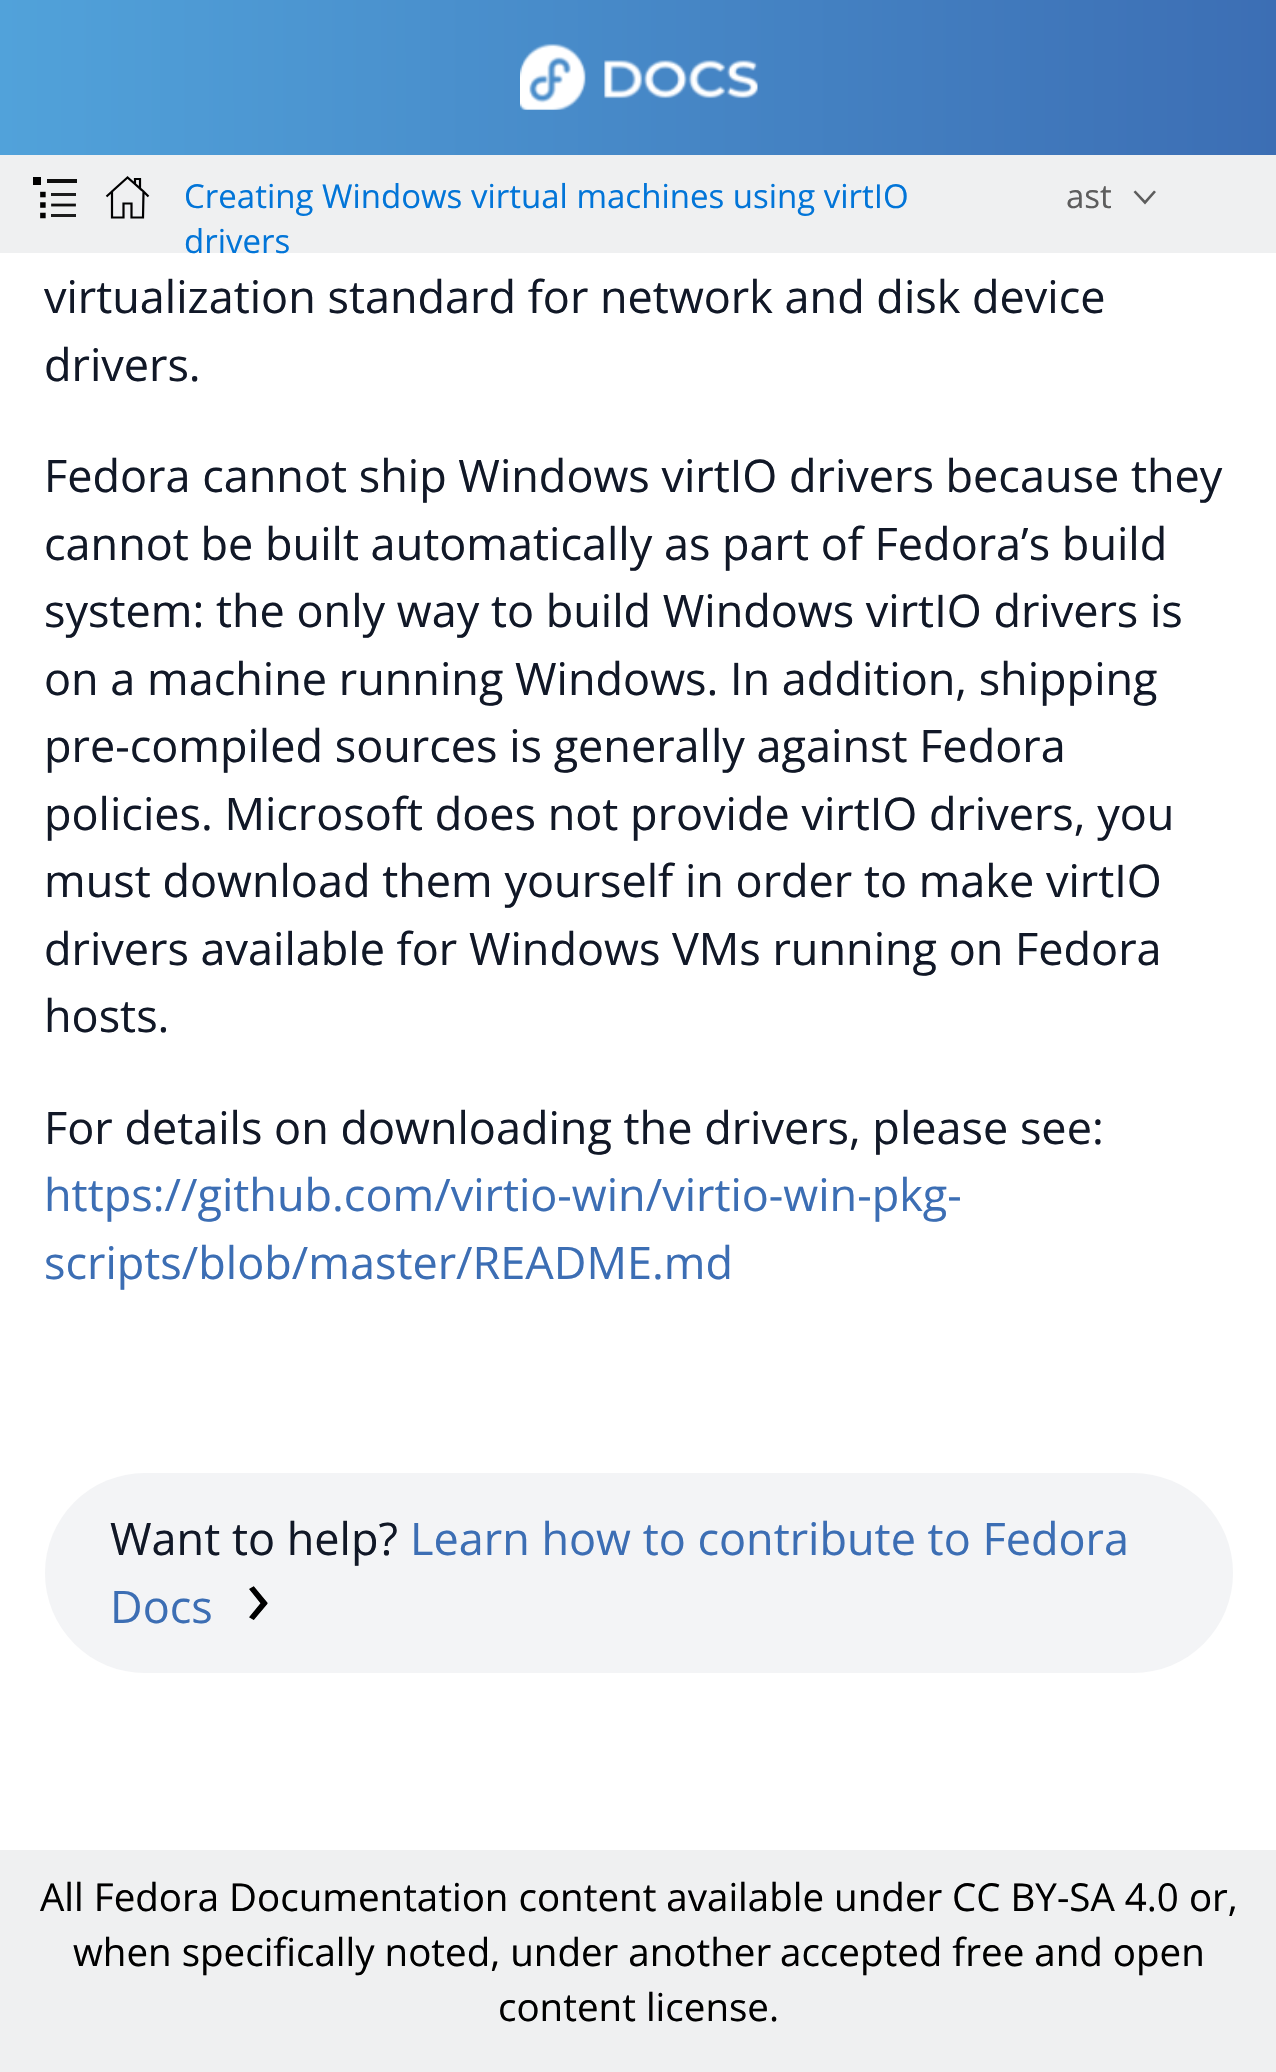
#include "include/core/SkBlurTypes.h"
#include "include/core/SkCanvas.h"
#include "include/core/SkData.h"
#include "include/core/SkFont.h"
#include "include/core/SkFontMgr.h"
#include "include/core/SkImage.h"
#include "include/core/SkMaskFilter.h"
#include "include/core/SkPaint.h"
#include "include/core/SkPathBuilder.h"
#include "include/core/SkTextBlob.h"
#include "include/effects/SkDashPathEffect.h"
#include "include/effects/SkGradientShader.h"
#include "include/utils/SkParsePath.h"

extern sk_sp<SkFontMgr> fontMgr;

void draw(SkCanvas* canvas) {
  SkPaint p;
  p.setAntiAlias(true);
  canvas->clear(SK_ColorWHITE);
  {
    const SkColor colors[] = {SkColorSetRGB(60, 110, 180), SkColorSetRGB(81, 162, 218)};
    const float stops[] = {0, 1};
    const SkPoint ends[] = {{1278, 77}, {0, 78}};
    p.setShader(SkGradientShader::MakeLinear(ends, colors, stops, 2, SkTileMode::kClamp));
    p.setAlpha(255);
  }
  canvas->drawRect(SkRect::MakeLTRB(0, 0, 1276, 155), p);
  canvas->drawImageRect(SkImages::DeferredFromEncodedData(SkData::MakeFromFileName("images/1.png")), SkRect::MakeLTRB(520, 43, 758, 110), SkSamplingOptions());
  p.setShader(nullptr);
  p.setColor(SkColorSetRGB(239, 240, 241));
  canvas->drawRect(SkRect::MakeLTRB(0, 155, 1276, 253), p);
  canvas->drawImageRect(SkImages::DeferredFromEncodedData(SkData::MakeFromFileName("images/2.png")), SkRect::MakeLTRB(33, 177, 77, 219), SkSamplingOptions());
  p.setStyle(SkPaint::kStroke_Style);
  p.setStrokeWidth(2.2f);
  p.setColor(SK_ColorBLACK);
  canvas->drawPath(SkPathBuilder().moveTo(127.5f, 177.5f).lineTo(112, 191.5f).lineTo(112, 217.5f).lineTo(123.5f, 217.5f).lineTo(123.5f, 203.5f).lineTo(131.5f, 203.5f).lineTo(131.5f, 217.5f).lineTo(143, 217.5f).lineTo(143.5f, 191.5f).close().moveTo(135, 184).lineTo(135, 179).lineTo(140, 179).lineTo(140, 188.5f).close().moveTo(112, 191.5f).lineTo(106.5f, 196.5f).moveTo(148.5f, 196.5f).lineTo(143.5f, 191.5f).detach(), p);
  p.setStyle(SkPaint::kFill_Style);
  p.setColor(SkColorSetRGB(93, 93, 93));
  canvas->drawPath(SkPathBuilder().moveTo(1135.5f, 190.5f).lineTo(1133.5f, 192).lineTo(1145, 204.5f).lineTo(1156, 192).lineTo(1154, 190.5f).lineTo(1145, 200.5f).close().detach(), p);
  p.setColor(SkColorSetRGB(243, 244, 246));
  canvas->drawRoundRect(SkRect::MakeLTRB(45, 1473, 1233, 1673), 100, 100, p);
  p.setColor(SkColorSetRGB(239, 240, 241));
  canvas->drawRect(SkRect::MakeLTRB(0, 1850, 1276, 2072), p);
  SkFont font1(fontMgr->matchFamilyStyle("Open Sans", SkFontStyle::Normal()), 33);
  font1.setSubpixel(true);
  p.setColor(SkColorSetRGB(2, 117, 216));
  canvas->drawString("Creating Windows virtual machines using virtIO", 184, 208, font1, p);
  canvas->drawString("drivers", 184, 253, font1, p);
  p.setColor(SkColorSetRGB(93, 93, 93));
  canvas->drawString("ast", 1066, 208, font1, p);
  SkFont font2(fontMgr->matchFamilyStyle("Open Sans", SkFontStyle::Normal()), 45);
  font2.setSubpixel(true);
  p.setColor(SkColorSetRGB(17, 24, 39));
  canvas->drawString("virtualization standard for network and disk device", 44, 313, font2, p);
  canvas->drawString("drivers.", 44, 381, font2, p);
  canvas->drawString("Fedora cannot ship Windows virtIO drivers because they", 44, 492, font2, p);
  canvas->drawString("cannot be built automatically as part of Fedora’s build", 44, 560, font2, p);
  canvas->drawString("system: the only way to build Windows virtIO drivers is", 44, 627, font2, p);
  canvas->drawString("on a machine running Windows. In addition, shipping", 44, 695, font2, p);
  canvas->drawString("pre-compiled sources is generally against Fedora", 44, 762, font2, p);
  canvas->drawString("policies. Microsoft does not provide virtIO drivers, you", 44, 830, font2, p);
  canvas->drawString("must download them yourself in order to make virtIO", 44, 897, font2, p);
  canvas->drawString("drivers available for Windows VMs running on Fedora", 44, 965, font2, p);
  canvas->drawString("hosts.", 44, 1032, font2, p);
  canvas->drawString("For details on downloading the drivers, please see:", 44, 1144, font2, p);
  p.setColor(SkColorSetRGB(60, 110, 180));
  canvas->drawString("https://github.com/virtio-win/virtio-win-pkg-", 44, 1211, font2, p);
  canvas->drawString("scripts/blob/master/README.md", 44, 1279, font2, p);
  p.setColor(SkColorSetRGB(17, 24, 39));
  canvas->drawString("Want to help?", 110, 1555, font2, p);
  p.setColor(SkColorSetRGB(60, 110, 180));
  canvas->drawString("Learn how to contribute to Fedora", 410, 1555, font2, p);
  canvas->drawString("Docs", 110, 1623, font2, p);
  SkFont font3(fontMgr->matchFamilyStyle("Open Sans", SkFontStyle::Normal()), 82);
  font3.setSubpixel(true);
  p.setColor(SK_ColorBLACK);
  canvas->drawString("›", 246, 1625, font3, p);
  SkFont font4(fontMgr->matchFamilyStyle("Open Sans", SkFontStyle::Normal()), 38.5f);
  font4.setSubpixel(true);
  canvas->drawString("All Fedora Documentation content available under", 40, 1911, font4, p);
  canvas->drawString("CC BY-SA 4.0 or,", 952, 1911, font4, p);
  canvas->drawString("when specifically noted, under another", 73, 1966, font4, p);
  canvas->drawString("accepted free and open", 780, 1966, font4, p);
  canvas->drawString("content license.", 498, 2021, font4, p);
}
